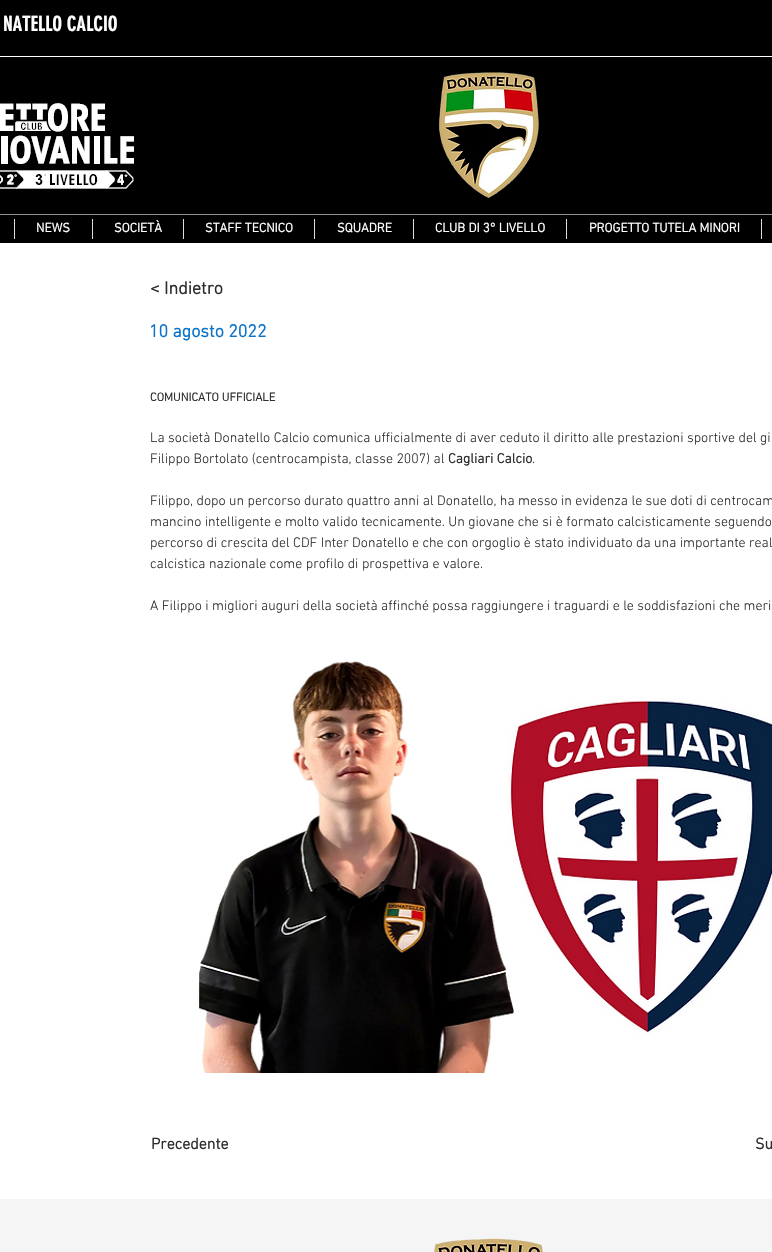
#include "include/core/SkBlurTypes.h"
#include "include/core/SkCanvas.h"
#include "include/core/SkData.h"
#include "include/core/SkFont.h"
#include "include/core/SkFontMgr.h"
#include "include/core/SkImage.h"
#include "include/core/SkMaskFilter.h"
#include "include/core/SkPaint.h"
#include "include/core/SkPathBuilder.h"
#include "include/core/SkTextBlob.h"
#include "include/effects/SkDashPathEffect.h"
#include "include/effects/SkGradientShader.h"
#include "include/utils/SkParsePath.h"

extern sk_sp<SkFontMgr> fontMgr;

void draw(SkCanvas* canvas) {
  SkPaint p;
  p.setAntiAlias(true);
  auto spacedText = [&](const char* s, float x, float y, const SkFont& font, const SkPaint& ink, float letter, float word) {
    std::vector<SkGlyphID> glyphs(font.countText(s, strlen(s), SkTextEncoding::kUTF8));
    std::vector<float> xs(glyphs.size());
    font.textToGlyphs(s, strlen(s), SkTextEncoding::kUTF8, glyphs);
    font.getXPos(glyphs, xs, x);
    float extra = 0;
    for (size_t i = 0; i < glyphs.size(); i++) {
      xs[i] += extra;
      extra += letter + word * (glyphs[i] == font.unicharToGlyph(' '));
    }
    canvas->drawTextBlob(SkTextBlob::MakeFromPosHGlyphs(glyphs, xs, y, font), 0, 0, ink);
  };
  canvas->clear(SK_ColorWHITE);
  p.setColor(SK_ColorBLACK);
  canvas->drawRect(SkRect::MakeLTRB(0, 0, 772, 243), p);
  p.setColor(SK_ColorWHITE);
  canvas->drawRect(SkRect::MakeLTRB(0, 56, 772, 57), p);
  canvas->drawImageRect(SkImages::DeferredFromEncodedData(SkData::MakeFromFileName("images/1.png")), SkRect::MakeLTRB(0, 103, 134, 189), SkSamplingOptions());
  canvas->drawImageRect(SkImages::DeferredFromEncodedData(SkData::MakeFromFileName("images/2.png")), SkRect::MakeLTRB(438, 72, 539, 198), SkSamplingOptions());
  p.setColor(SkColorSetRGB(145, 145, 145));
  canvas->drawRect(SkRect::MakeLTRB(0, 214, 772, 215), p);
  p.setColor(SkColorSetRGB(222, 222, 222));
  canvas->drawRect(SkRect::MakeLTRB(14, 219, 15, 239), p);
  canvas->drawRect(SkRect::MakeLTRB(92, 219, 93, 239), p);
  canvas->drawRect(SkRect::MakeLTRB(183, 219, 184, 239), p);
  canvas->drawRect(SkRect::MakeLTRB(314, 219, 315, 239), p);
  canvas->drawRect(SkRect::MakeLTRB(413, 219, 414, 239), p);
  canvas->drawRect(SkRect::MakeLTRB(566, 219, 567, 239), p);
  canvas->drawRect(SkRect::MakeLTRB(761, 219, 762, 239), p);
  canvas->drawImageRect(SkImages::DeferredFromEncodedData(SkData::MakeFromFileName("images/3.png")), SkRect::MakeLTRB(199, 661, 772, 1073), SkSamplingOptions());
  p.setColor(SkColorSetRGB(245, 245, 245));
  canvas->drawRect(SkRect::MakeLTRB(0, 1199, 772, 1252), p);
  canvas->drawImageRect(SkImages::DeferredFromEncodedData(SkData::MakeFromFileName("images/4.png")), SkRect::MakeLTRB(434, 1238, 543, 1252), SkSamplingOptions());
  SkFont font1(fontMgr->matchFamilyStyle("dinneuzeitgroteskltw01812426", SkFontStyle::Bold()), 20);
  font1.setSubpixel(true);
  p.setColor(SK_ColorWHITE);
  spacedText("NATELLO CALCIO", 3, 31, font1, p, 0.25f, 0);
  SkFont font2(fontMgr->matchFamilyStyle("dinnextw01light", SkFontStyle::Bold()), 13);
  font2.setSubpixel(true);
  canvas->drawString("NEWS", 36, 232, font2, p);
  canvas->drawString("SOCIETÀ", 114, 232, font2, p);
  canvas->drawString("STAFF TECNICO", 205, 232, font2, p);
  canvas->drawString("SQUADRE", 337, 232, font2, p);
  canvas->drawString("CLUB DI 3° LIVELLO", 435, 232, font2, p);
  canvas->drawString("PROGETTO TUTELA MINORI", 589, 232, font2, p);
  SkFont font3(fontMgr->matchFamilyStyle("dinnextw01light", SkFontStyle::Bold()), 18);
  font3.setSubpixel(true);
  p.setColor(SkColorSetRGB(47, 46, 46));
  canvas->drawString("< Indietro", 150, 294, font3, p);
  p.setColor(SkColorSetRGB(12, 115, 199));
  canvas->drawString("10 agosto 2022", 149, 337, font3, p);
  SkFont font4(fontMgr->matchFamilyStyle("dinnextw01light", SkFontStyle::Bold()), 12);
  font4.setSubpixel(true);
  p.setColor(SkColorSetRGB(47, 46, 46));
  canvas->drawString("COMUNICATO UFFICIALE", 150, 401, font4, p);
  SkFont font5(fontMgr->matchFamilyStyle("dinnextw01light", SkFontStyle(300, SkFontStyle::kNormal_Width, SkFontStyle::kUpright_Slant)), 14);
  font5.setSubpixel(true);
  canvas->drawString("La società Donatello Calcio comunica ufficialmente di aver ceduto il diritto alle prestazioni sportive del gi", 150, 442, font5, p);
  canvas->drawString("Filippo Bortolato (centrocampista, classe 2007) al", 150, 463, font5, p);
  SkFont font6(fontMgr->matchFamilyStyle("dinnextw01light", SkFontStyle::Bold()), 14);
  font6.setSubpixel(true);
  canvas->drawString("Cagliari Calcio", 448, 463, font6, p);
  canvas->drawString(".", 532, 463, font5, p);
  canvas->drawString("Filippo, dopo un percorso durato quattro anni al Donatello, ha messo in evidenza le sue doti di centrocam", 150, 505, font5, p);
  canvas->drawString("mancino intelligente e molto valido tecnicamente. Un giovane che si è formato calcisticamente seguendo", 150, 526, font5, p);
  canvas->drawString("percorso di crescita del CDF Inter Donatello e che con orgoglio è stato individuato da una importante real", 150, 547, font5, p);
  canvas->drawString("calcistica nazionale come profilo di prospettiva e valore.", 150, 568, font5, p);
  canvas->drawString("A Filippo i migliori auguri della società affinché possa raggiungere i traguardi e le soddisfazioni che meri", 150, 610, font5, p);
  SkFont font7(fontMgr->matchFamilyStyle("dinnextw01light", SkFontStyle::Bold()), 16);
  font7.setSubpixel(true);
  canvas->drawString("Precedente", 151, 1149, font7, p);
  canvas->drawString("Su", 755, 1149, font7, p);
}
